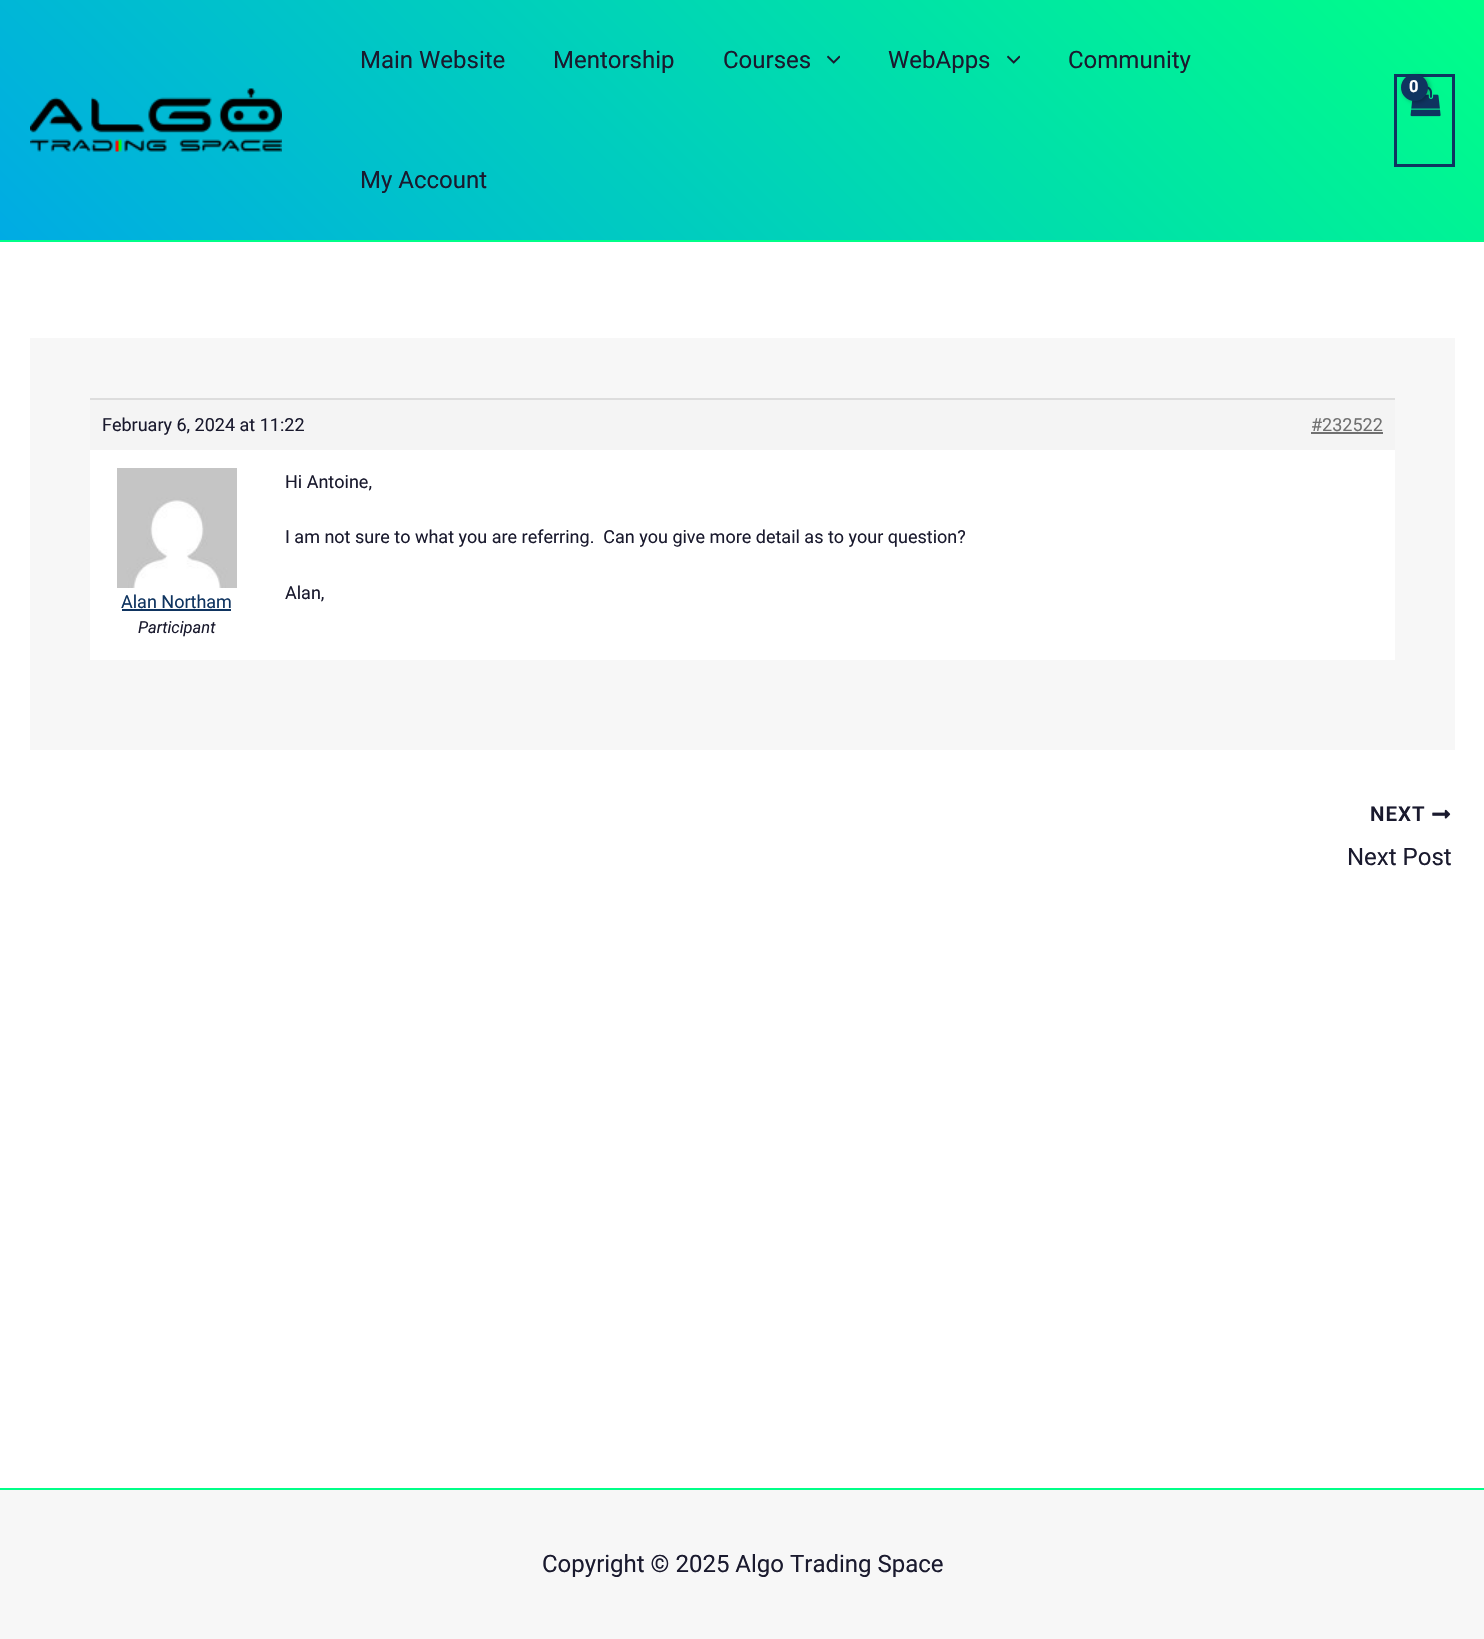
#include "include/core/SkBlurTypes.h"
#include "include/core/SkCanvas.h"
#include "include/core/SkData.h"
#include "include/core/SkFont.h"
#include "include/core/SkFontMgr.h"
#include "include/core/SkImage.h"
#include "include/core/SkMaskFilter.h"
#include "include/core/SkPaint.h"
#include "include/core/SkPathBuilder.h"
#include "include/core/SkTextBlob.h"
#include "include/effects/SkDashPathEffect.h"
#include "include/effects/SkGradientShader.h"
#include "include/utils/SkParsePath.h"

extern sk_sp<SkFontMgr> fontMgr;

void draw(SkCanvas* canvas) {
  SkPaint p;
  p.setAntiAlias(true);
  auto spacedText = [&](const char* s, float x, float y, const SkFont& font, const SkPaint& ink, float letter, float word) {
    std::vector<SkGlyphID> glyphs(font.countText(s, strlen(s), SkTextEncoding::kUTF8));
    std::vector<float> xs(glyphs.size());
    font.textToGlyphs(s, strlen(s), SkTextEncoding::kUTF8, glyphs);
    font.getXPos(glyphs, xs, x);
    float extra = 0;
    for (size_t i = 0; i < glyphs.size(); i++) {
      xs[i] += extra;
      extra += letter + word * (glyphs[i] == font.unicharToGlyph(' '));
    }
    canvas->drawTextBlob(SkTextBlob::MakeFromPosHGlyphs(glyphs, xs, y, font), 0, 0, ink);
  };
  canvas->clear(SK_ColorWHITE);
  {
    const SkColor colors[] = {SkColorSetRGB(0, 171, 228), SkColorSetRGB(0, 255, 136)};
    const float stops[] = {0, 1};
    const SkPoint ends[] = {{311, 552}, {1174, -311}};
    p.setShader(SkGradientShader::MakeLinear(ends, colors, stops, 2, SkTileMode::kClamp));
    p.setAlpha(255);
  }
  canvas->drawRect(SkRect::MakeLTRB(0, 0, 1484, 240), p);
  p.setShader(nullptr);
  p.setColor(SkColorSetRGB(0, 255, 136));
  canvas->drawRect(SkRect::MakeLTRB(0, 240, 1484, 242), p);
  canvas->drawImageRect(SkImages::DeferredFromEncodedData(SkData::MakeFromFileName("images/1.png")), SkRect::MakeLTRB(30, 88, 282, 152), SkSamplingOptions());
  canvas->drawImageRect(SkImages::DeferredFromEncodedData(SkData::MakeFromFileName("images/2.png")), SkRect::MakeLTRB(827, 55, 840, 64), SkSamplingOptions());
  canvas->drawImageRect(SkImages::DeferredFromEncodedData(SkData::MakeFromFileName("images/3.png")), SkRect::MakeLTRB(1007, 55, 1020, 64), SkSamplingOptions());
  p.setStyle(SkPaint::kStroke_Style);
  p.setStrokeWidth(3);
  p.setColor(SkColorSetRGB(15, 52, 96));
  canvas->drawRect(SkRect::MakeLTRB(1395.5f, 75.5f, 1453.5f, 165.5f), p);
  canvas->drawImageRect(SkImages::DeferredFromEncodedData(SkData::MakeFromFileName("images/4.png")), SkRect::MakeLTRB(1410, 86, 1441, 117), SkSamplingOptions());
  p.setStyle(SkPaint::kFill_Style);
  p.setColor(SkColorSetARGB(77, 0, 0, 0));
  p.setMaskFilter(SkMaskFilter::MakeBlur(kNormal_SkBlurStyle, 2));
  canvas->drawRoundRect(SkRect::MakeLTRB(1403, 75, 1430, 102), 13.5f, 13.5f, p);
  p.setMaskFilter(nullptr);
  p.setColor(SkColorSetRGB(15, 52, 96));
  canvas->drawCircle(1414.5f, 87.5f, 13.5f, p);
  p.setColor(SkColorSetRGB(247, 247, 247));
  canvas->drawRect(SkRect::MakeLTRB(30, 338, 1455, 750), p);
  p.setColor(SkColorSetRGB(244, 244, 244));
  canvas->drawRect(SkRect::MakeLTRB(90, 400, 1395, 450), p);
  p.setColor(SkColorSetRGB(221, 221, 221));
  canvas->drawRect(SkRect::MakeLTRB(90, 398, 1395, 400), p);
  p.setColor(SkColorSetRGB(112, 112, 112));
  canvas->drawRect(SkRect::MakeLTRB(1311, 432, 1383, 434), p);
  p.setColor(SK_ColorWHITE);
  canvas->drawRect(SkRect::MakeLTRB(90, 450, 1395, 660), p);
  canvas->drawImageRect(SkImages::DeferredFromEncodedData(SkData::MakeFromFileName("images/5.png")), SkRect::MakeLTRB(117, 468, 237, 588), SkSamplingOptions());
  p.setColor(SkColorSetRGB(15, 52, 96));
  canvas->drawRect(SkRect::MakeLTRB(122, 609, 231, 611), p);
  canvas->drawImageRect(SkImages::DeferredFromEncodedData(SkData::MakeFromFileName("images/6.png")), SkRect::MakeLTRB(1432, 809, 1451, 819), SkSamplingOptions());
  p.setColor(SkColorSetRGB(247, 247, 247));
  canvas->drawRect(SkRect::MakeLTRB(0, 1490, 1484, 1639), p);
  p.setColor(SkColorSetRGB(0, 255, 136));
  canvas->drawRect(SkRect::MakeLTRB(0, 1488, 1484, 1490), p);
  SkFont font1(fontMgr->matchFamilyStyle("Roboto", SkFontStyle::Normal()), 24);
  font1.setSubpixel(true);
  p.setColor(SkColorSetRGB(26, 26, 46));
  canvas->drawString("Main Website", 360, 68, font1, p);
  canvas->drawString("Mentorship", 553, 68, font1, p);
  canvas->drawString("Courses", 723, 68, font1, p);
  canvas->drawString("WebApps", 888, 68, font1, p);
  canvas->drawString("Community", 1068, 68, font1, p);
  canvas->drawString("My Account", 360, 188, font1, p);
  SkFont font2(fontMgr->matchFamilyStyle("Roboto", SkFontStyle::Bold()), 16.5f);
  font2.setSubpixel(true);
  p.setColor(SK_ColorWHITE);
  spacedText("0", 1409, 92, font2, p, -1, 0);
  SkFont font3(fontMgr->matchFamilyStyle("Roboto", SkFontStyle::Normal()), 18);
  font3.setSubpixel(true);
  p.setColor(SkColorSetRGB(26, 26, 46));
  canvas->drawString("February 6, 2024 at 11:22", 102, 431, font3, p);
  p.setColor(SkColorSetRGB(112, 112, 112));
  canvas->drawString("#232522", 1311, 431, font3, p);
  p.setColor(SkColorSetRGB(26, 26, 46));
  canvas->drawString("Hi Antoine,", 285, 488, font3, p);
  canvas->drawString("I am not sure to what you are referring.  Can you give more detail as to your question?", 285, 543, font3, p);
  canvas->drawString("Alan,", 285, 599, font3, p);
  p.setColor(SkColorSetRGB(15, 52, 96));
  canvas->drawString("Alan Northam", 121, 608, font3, p);
  SkFont font4(fontMgr->matchFamilyStyle("Roboto", SkFontStyle::Italic()), 16.5f);
  font4.setSubpixel(true);
  p.setColor(SkColorSetRGB(26, 26, 46));
  canvas->drawString("Participant", 138, 633, font4, p);
  SkFont font5(fontMgr->matchFamilyStyle("Roboto", SkFontStyle(600, SkFontStyle::kNormal_Width, SkFontStyle::kUpright_Slant)), 20.5f);
  font5.setSubpixel(true);
  spacedText("NEXT", 1370, 821, font5, p, 1, 0);
  canvas->drawString("Next Post", 1347, 865, font1, p);
  canvas->drawString("Copyright © 2025 Algo Trading Space", 542, 1572, font1, p);
}
